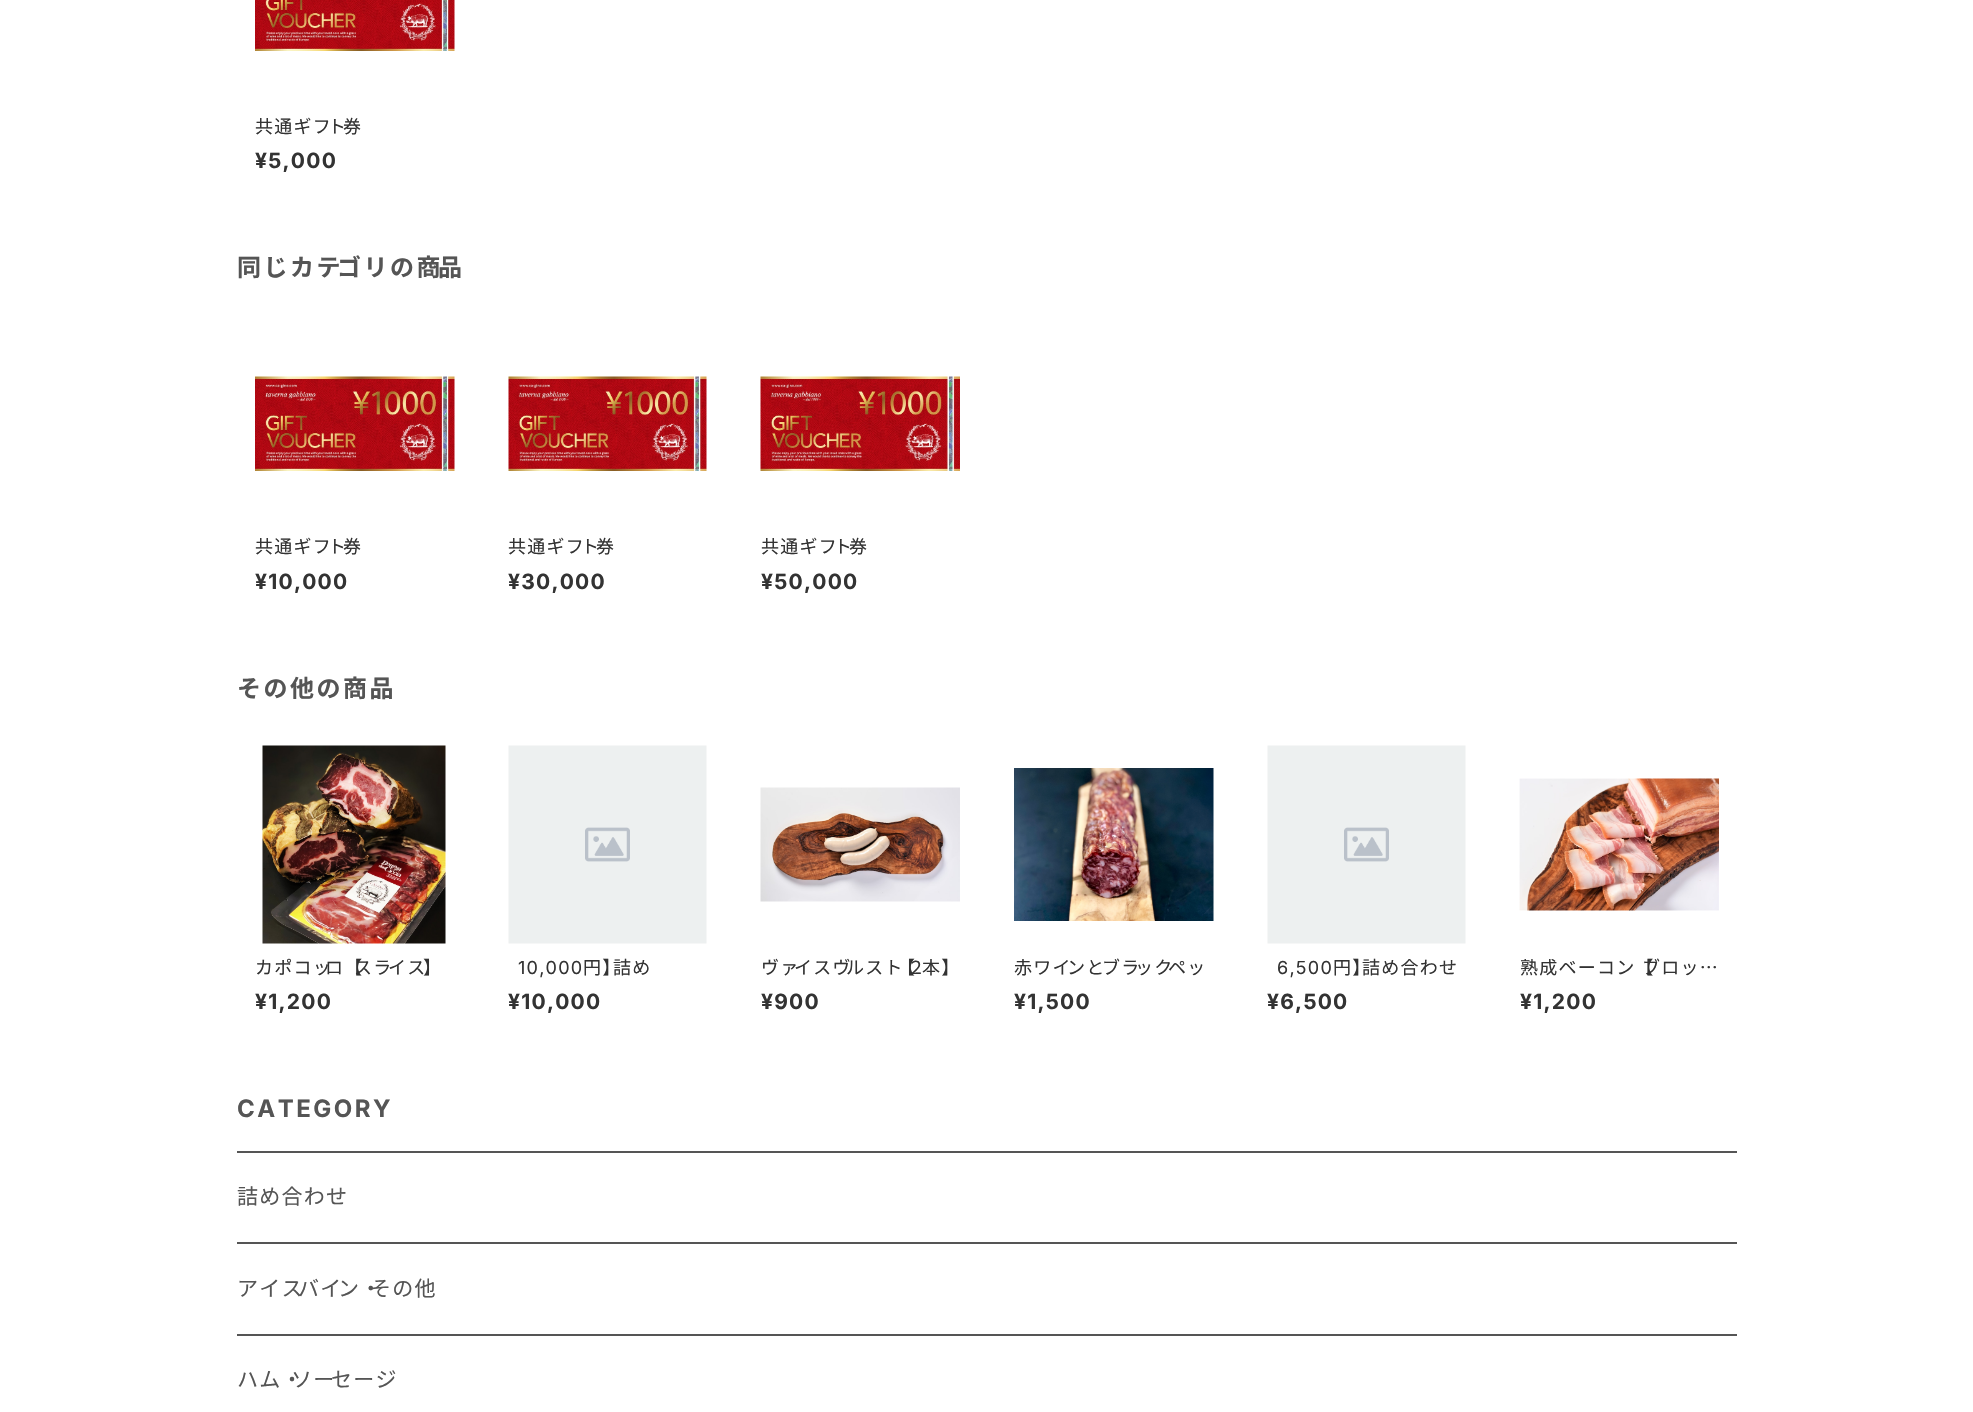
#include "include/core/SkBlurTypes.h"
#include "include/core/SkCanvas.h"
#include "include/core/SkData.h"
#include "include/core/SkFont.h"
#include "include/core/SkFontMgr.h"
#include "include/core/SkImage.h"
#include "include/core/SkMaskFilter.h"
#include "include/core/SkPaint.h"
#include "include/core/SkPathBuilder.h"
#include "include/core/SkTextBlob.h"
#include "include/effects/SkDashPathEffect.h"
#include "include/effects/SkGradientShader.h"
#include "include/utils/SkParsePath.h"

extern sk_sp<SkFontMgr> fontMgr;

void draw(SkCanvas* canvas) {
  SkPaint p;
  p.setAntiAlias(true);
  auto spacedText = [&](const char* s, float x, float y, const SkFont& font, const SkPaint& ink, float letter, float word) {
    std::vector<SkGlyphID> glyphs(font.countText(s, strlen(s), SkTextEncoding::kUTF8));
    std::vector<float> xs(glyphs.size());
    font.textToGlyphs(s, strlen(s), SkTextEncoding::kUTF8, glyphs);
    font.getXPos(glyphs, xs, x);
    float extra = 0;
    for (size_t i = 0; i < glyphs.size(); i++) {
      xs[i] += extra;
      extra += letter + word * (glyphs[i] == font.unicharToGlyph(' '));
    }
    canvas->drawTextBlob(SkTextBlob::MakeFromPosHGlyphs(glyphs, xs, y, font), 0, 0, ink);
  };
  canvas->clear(SK_ColorWHITE);
  canvas->drawImageRect(SkImages::DeferredFromEncodedData(SkData::MakeFromFileName("images/1.png")), SkRect::MakeLTRB(255, 0, 455, 51), SkSamplingOptions());
  canvas->drawImageRect(SkImages::DeferredFromEncodedData(SkData::MakeFromFileName("images/2.png")), SkRect::MakeLTRB(255, 376, 455, 471), SkSamplingOptions());
  canvas->drawImageRect(SkImages::DeferredFromEncodedData(SkData::MakeFromFileName("images/3.png")), SkRect::MakeLTRB(508, 376, 707, 471), SkSamplingOptions());
  canvas->drawImageRect(SkImages::DeferredFromEncodedData(SkData::MakeFromFileName("images/4.png")), SkRect::MakeLTRB(760, 376, 960, 471), SkSamplingOptions());
  canvas->drawImageRect(SkImages::DeferredFromEncodedData(SkData::MakeFromFileName("images/5.png")), SkRect::MakeLTRB(262, 745, 446, 944), SkSamplingOptions());
  canvas->drawImageRect(SkImages::DeferredFromEncodedData(SkData::MakeFromFileName("images/6.png")), SkRect::MakeLTRB(508, 745, 707, 944), SkSamplingOptions());
  canvas->drawImageRect(SkImages::DeferredFromEncodedData(SkData::MakeFromFileName("images/7.png")), SkRect::MakeLTRB(760, 787, 960, 902), SkSamplingOptions());
  canvas->drawImageRect(SkImages::DeferredFromEncodedData(SkData::MakeFromFileName("images/8.png")), SkRect::MakeLTRB(1014, 768, 1214, 921), SkSamplingOptions());
  canvas->drawImageRect(SkImages::DeferredFromEncodedData(SkData::MakeFromFileName("images/6.png")), SkRect::MakeLTRB(1267, 745, 1466, 944), SkSamplingOptions());
  canvas->drawImageRect(SkImages::DeferredFromEncodedData(SkData::MakeFromFileName("images/9.png")), SkRect::MakeLTRB(1519, 778, 1719, 911), SkSamplingOptions());
  p.setColor(SkColorSetRGB(85, 85, 85));
  canvas->drawRect(SkRect::MakeLTRB(237, 1151, 1737, 1153), p);
  canvas->drawRect(SkRect::MakeLTRB(237, 1242, 1737, 1244), p);
  canvas->drawRect(SkRect::MakeLTRB(237, 1334, 1737, 1336), p);
  SkFont font1(fontMgr->matchFamilyStyle("Noto Sans JP", SkFontStyle::Normal()), 18);
  font1.setSubpixel(true);
  p.setColor(SkColorSetRGB(51, 51, 51));
  spacedText("共通ギフ", 255, 133, font1, p, 1.25f, 0);
  spacedText("ト", 328, 133, font1, p, 1.25f, 0);
  spacedText("券", 343, 133, font1, p, 1.25f, 0);
  SkFont font2(fontMgr->matchFamilyStyle("Inter", SkFontStyle::Bold()), 21);
  font2.setSubpixel(true);
  spacedText("¥5,000", 255, 168, font2, p, 1.25f, 0);
  SkFont font3(fontMgr->matchFamilyStyle("Noto Sans JP", SkFontStyle::Bold()), 24);
  font3.setSubpixel(true);
  p.setColor(SkColorSetRGB(85, 85, 85));
  spacedText("同じカテ", 237, 276, font3, p, 2.5f, 0);
  spacedText("ゴリの商", 337, 276, font3, p, 2.5f, 0);
  spacedText("品", 438, 276, font3, p, 2.5f, 0);
  p.setColor(SkColorSetRGB(51, 51, 51));
  spacedText("共通ギフ", 255, 553, font1, p, 1.25f, 0);
  spacedText("ト", 328, 553, font1, p, 1.25f, 0);
  spacedText("券", 343, 553, font1, p, 1.25f, 0);
  spacedText("¥10,000", 255, 589, font2, p, 1.25f, 0);
  spacedText("共通ギフ", 508, 553, font1, p, 1.25f, 0);
  spacedText("ト", 581, 553, font1, p, 1.25f, 0);
  spacedText("券", 596, 553, font1, p, 1.25f, 0);
  spacedText("¥30,000", 508, 589, font2, p, 1.25f, 0);
  spacedText("共通ギフ", 761, 553, font1, p, 1.25f, 0);
  spacedText("ト", 834, 553, font1, p, 1.25f, 0);
  spacedText("券", 849, 553, font1, p, 1.25f, 0);
  spacedText("¥50,000", 761, 589, font2, p, 1.25f, 0);
  p.setColor(SkColorSetRGB(85, 85, 85));
  spacedText("その他の商品", 237, 697, font3, p, 2.5f, 0);
  p.setColor(SkColorSetRGB(51, 51, 51));
  spacedText("カポコッ", 255, 974, font1, p, 1.25f, 0);
  spacedText("ロ【", 325, 974, font1, p, 1.25f, 0);
  spacedText("スラ", 354, 974, font1, p, 1.25f, 0);
  spacedText("イス", 388, 974, font1, p, 1.25f, 0);
  spacedText("】", 423, 974, font1, p, 1.25f, 0);
  spacedText("¥1,200", 255, 1009, font2, p, 1.25f, 0);
  SkFont font4(fontMgr->matchFamilyStyle("Inter", SkFontStyle::Normal()), 18);
  font4.setSubpixel(true);
  spacedText("10,000", 518, 974, font4, p, 1.25f, 0);
  spacedText("円】", 583, 974, font1, p, 1.25f, 0);
  spacedText("詰め...", 613, 974, font1, p, 1.25f, 0);
  spacedText("¥10,000", 508, 1009, font2, p, 1.25f, 0);
  spacedText("ヴァ", 761, 974, font1, p, 1.25f, 0);
  spacedText("イスヴ", 794, 974, font1, p, 1.25f, 0);
  spacedText("ルスト", 846, 974, font1, p, 1.25f, 0);
  spacedText("【", 897, 974, font1, p, 1.25f, 0);
  spacedText("２", 907, 974, font1, p, 1.25f, 0);
  spacedText("本】", 922, 974, font1, p, 1.25f, 0);
  spacedText("¥900", 761, 1009, font2, p, 1.25f, 0);
  spacedText("赤ワイ", 1014, 974, font1, p, 1.25f, 0);
  spacedText("ンと", 1067, 974, font1, p, 1.25f, 0);
  spacedText("ブラ", 1102, 974, font1, p, 1.25f, 0);
  spacedText("ック", 1135, 974, font1, p, 1.25f, 0);
  spacedText("ペッ", 1168, 974, font1, p, 1.25f, 0);
  spacedText("¥1,500", 1014, 1009, font2, p, 1.25f, 0);
  spacedText("6,500", 1277, 974, font4, p, 1.25f, 0);
  spacedText("円】", 1333, 974, font1, p, 1.25f, 0);
  spacedText("詰め合わせ", 1362, 974, font1, p, 1.25f, 0);
  spacedText("¥6,500", 1267, 1009, font2, p, 1.25f, 0);
  spacedText("熟成ベーコン【", 1520, 974, font1, p, 1.25f, 0);
  spacedText("ブロッ…", 1642, 974, font1, p, 1.25f, 0);
  spacedText("¥1,200", 1520, 1009, font2, p, 1.25f, 0);
  SkFont font5(fontMgr->matchFamilyStyle("Inter", SkFontStyle::Bold()), 24);
  font5.setSubpixel(true);
  p.setColor(SkColorSetRGB(85, 85, 85));
  spacedText("CATEGORY", 237, 1117, font5, p, 2.5f, 0);
  SkFont font6(fontMgr->matchFamilyStyle("Noto Sans JP", SkFontStyle::Normal()), 21);
  font6.setSubpixel(true);
  spacedText("詰め合わせ", 237, 1204, font6, p, 1.25f, 0);
  spacedText("アイス", 237, 1296, font6, p, 1.25f, 0);
  spacedText("バイ", 298, 1296, font6, p, 1.25f, 0);
  spacedText("ン・", 338, 1296, font6, p, 1.25f, 0);
  spacedText("その他", 370, 1296, font6, p, 1.25f, 0);
  spacedText("ハム・", 237, 1387, font6, p, 1.25f, 0);
  spacedText("ソー", 291, 1387, font6, p, 1.25f, 0);
  spacedText("セージ", 331, 1387, font6, p, 1.25f, 0);
}
